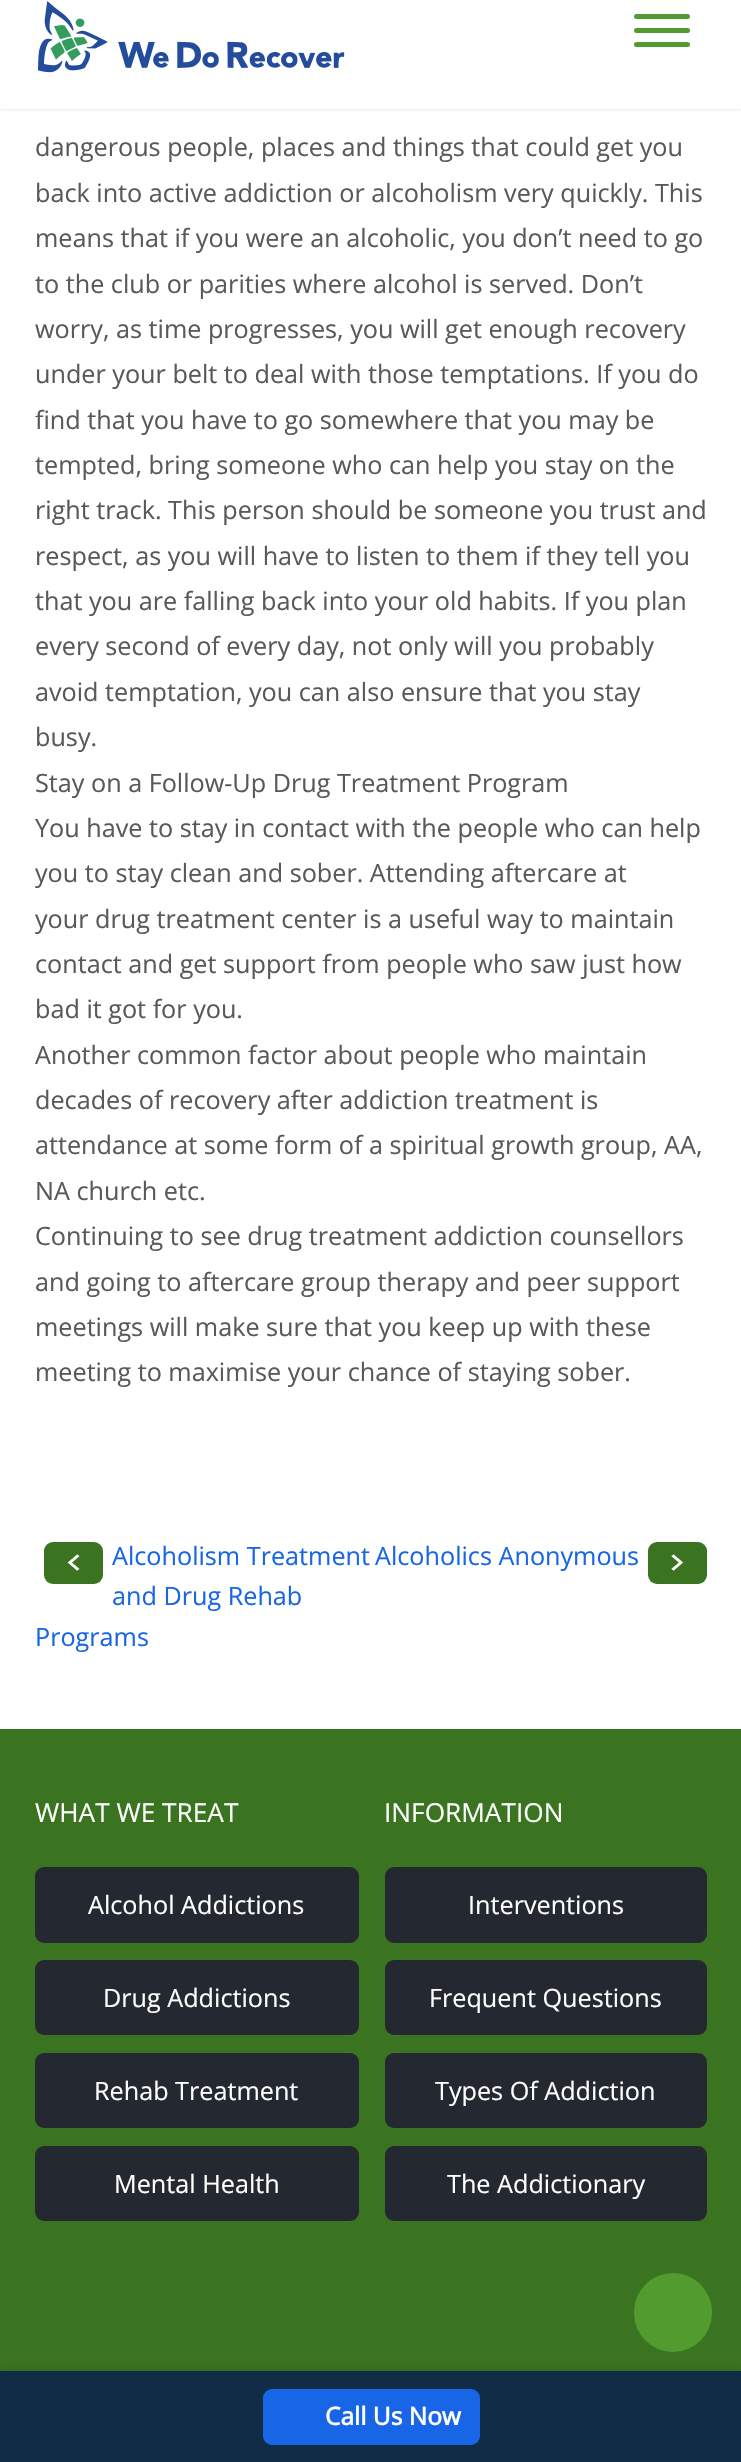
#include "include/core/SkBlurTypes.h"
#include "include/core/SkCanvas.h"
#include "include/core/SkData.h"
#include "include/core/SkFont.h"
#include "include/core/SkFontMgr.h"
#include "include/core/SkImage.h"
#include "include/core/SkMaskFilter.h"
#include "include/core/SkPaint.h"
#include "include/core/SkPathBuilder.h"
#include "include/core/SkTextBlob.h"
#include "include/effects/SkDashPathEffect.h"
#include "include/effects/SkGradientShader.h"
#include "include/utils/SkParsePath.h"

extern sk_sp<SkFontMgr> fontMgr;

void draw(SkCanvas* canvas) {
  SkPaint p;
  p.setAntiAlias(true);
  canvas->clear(SK_ColorWHITE);
  p.setColor(SkColorSetARGB(18, 0, 0, 0));
  p.setMaskFilter(SkMaskFilter::MakeBlur(kNormal_SkBlurStyle, 1));
  canvas->drawRect(SkRect::MakeLTRB(0, 2, 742, 110), p);
  p.setMaskFilter(nullptr);
  p.setColor(SK_ColorWHITE);
  canvas->drawRect(SkRect::MakeLTRB(0, 1, 741, 109), p);
  canvas->drawImageRect(SkImages::DeferredFromEncodedData(SkData::MakeFromFileName("images/1.png")), SkRect::MakeLTRB(38, 1, 345, 73), SkSamplingOptions());
  p.setColor(SkColorSetRGB(81, 155, 47));
  canvas->drawRoundRect(SkRect::MakeLTRB(634, 14, 690, 19), 2.5f, 2.5f, p);
  canvas->drawRoundRect(SkRect::MakeLTRB(634, 28, 690, 33), 2.5f, 2.5f, p);
  canvas->drawRoundRect(SkRect::MakeLTRB(634, 42, 690, 47), 2.5f, 2.5f, p);
  p.setColor(SkColorSetRGB(59, 116, 33));
  canvas->drawRoundRect(SkRect::MakeLTRB(44, 1542, 103, 1584), 9, 9, p);
  canvas->drawImageRect(SkImages::DeferredFromEncodedData(SkData::MakeFromFileName("images/2.png")), SkRect::MakeLTRB(67, 1554, 80, 1571), SkSamplingOptions());
  canvas->drawRoundRect(SkRect::MakeLTRB(648, 1542, 707, 1584), 9, 9, p);
  canvas->drawImageRect(SkImages::DeferredFromEncodedData(SkData::MakeFromFileName("images/3.png")), SkRect::MakeLTRB(671, 1554, 684, 1571), SkSamplingOptions());
  canvas->drawRect(SkRect::MakeLTRB(0, 1729, 741, 2371), p);
  p.setColor(SkColorSetRGB(36, 40, 48));
  canvas->drawRoundRect(SkRect::MakeLTRB(35, 1867, 359, 1943), 9, 9, p);
  canvas->drawRoundRect(SkRect::MakeLTRB(35, 1960, 359, 2035), 9, 9, p);
  canvas->drawRoundRect(SkRect::MakeLTRB(35, 2053, 359, 2128), 9, 9, p);
  canvas->drawRoundRect(SkRect::MakeLTRB(35, 2146, 359, 2221), 9, 9, p);
  canvas->drawRoundRect(SkRect::MakeLTRB(385, 1867, 707, 1943), 9, 9, p);
  canvas->drawRoundRect(SkRect::MakeLTRB(385, 1960, 707, 2035), 9, 9, p);
  canvas->drawRoundRect(SkRect::MakeLTRB(385, 2053, 707, 2128), 9, 9, p);
  canvas->drawRoundRect(SkRect::MakeLTRB(385, 2146, 707, 2221), 9, 9, p);
  p.setColor(SkColorSetRGB(81, 155, 47));
  canvas->drawRoundRect(SkRect::MakeLTRB(634, 2273, 712, 2352), 39, 39, p);
  p.setColor(SkColorSetARGB(26, 0, 0, 0));
  p.setMaskFilter(SkMaskFilter::MakeBlur(kNormal_SkBlurStyle, 4.5f));
  canvas->drawRect(SkRect::MakeLTRB(0, 2368, 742, 2459), p);
  p.setMaskFilter(nullptr);
  p.setColor(SkColorSetRGB(15, 43, 70));
  canvas->drawRect(SkRect::MakeLTRB(0, 2371, 741, 2462), p);
  p.setColor(SkColorSetRGB(24, 102, 231));
  canvas->drawRoundRect(SkRect::MakeLTRB(263, 2389, 480, 2445), 9, 9, p);
  SkFont font1(fontMgr->matchFamilyStyle("Open Sans", SkFontStyle::Normal()), 25.2f);
  font1.setSubpixel(true);
  p.setColor(SkColorSetRGB(89, 89, 89));
  canvas->drawString("dangerous people, places and things that could get you", 35, 156, font1, p);
  canvas->drawString("back into active addiction or alcoholism very quickly. This", 35, 202, font1, p);
  canvas->drawString("means that if you were an alcoholic, you don’t need to go", 35, 247, font1, p);
  canvas->drawString("to the club or parities where alcohol is served. Don’t", 35, 293, font1, p);
  canvas->drawString("worry, as time progresses, you will get enough recovery", 35, 338, font1, p);
  canvas->drawString("under your belt to deal with those temptations. If you do", 35, 383, font1, p);
  canvas->drawString("find that you have to go somewhere that you may be", 35, 429, font1, p);
  canvas->drawString("tempted, bring someone who can help you stay on the", 35, 474, font1, p);
  canvas->drawString("right track. This person should be someone you trust and", 35, 519, font1, p);
  canvas->drawString("respect, as you will have to listen to them if they tell you", 35, 565, font1, p);
  canvas->drawString("that you are falling back into your old habits. If you plan", 35, 610, font1, p);
  canvas->drawString("every second of every day, not only will you probably", 35, 655, font1, p);
  canvas->drawString("avoid temptation, you can also ensure that you stay", 35, 701, font1, p);
  canvas->drawString("busy.", 35, 746, font1, p);
  canvas->drawString("Stay on a Follow-Up Drug Treatment Program", 35, 792, font1, p);
  canvas->drawString("You have to stay in contact with the people who can help", 35, 837, font1, p);
  canvas->drawString("you to stay clean and sober. Attending aftercare at", 35, 882, font1, p);
  canvas->drawString("your drug treatment center is a useful way to maintain", 35, 928, font1, p);
  canvas->drawString("contact and get support from people who saw just how", 35, 973, font1, p);
  canvas->drawString("bad it got for you.", 35, 1018, font1, p);
  canvas->drawString("Another common factor about people who maintain", 35, 1064, font1, p);
  canvas->drawString("decades of recovery after addiction treatment is", 35, 1109, font1, p);
  canvas->drawString("attendance at some form of a spiritual growth group, AA,", 35, 1154, font1, p);
  canvas->drawString("NA church etc.", 35, 1200, font1, p);
  canvas->drawString("Continuing to see drug treatment addiction counsellors", 35, 1245, font1, p);
  canvas->drawString("and going to aftercare group therapy and peer support", 35, 1291, font1, p);
  canvas->drawString("meetings will make sure that you keep up with these", 35, 1336, font1, p);
  canvas->drawString("meeting to maximise your chance of staying sober.", 35, 1381, font1, p);
  p.setColor(SkColorSetRGB(24, 102, 231));
  canvas->drawString("Alcoholism Treatment", 112, 1565, font1, p);
  canvas->drawString("and Drug Rehab", 112, 1605, font1, p);
  canvas->drawString("Programs", 35, 1646, font1, p);
  canvas->drawString("Alcoholics Anonymous", 375, 1565, font1, p);
  SkFont font2(fontMgr->matchFamilyStyle("Open Sans", SkFontStyle::Normal()), 26.25f);
  font2.setSubpixel(true);
  p.setColor(SK_ColorWHITE);
  canvas->drawString("WHAT WE TREAT", 35, 1822, font2, p);
  canvas->drawString("Alcohol Addictions", 88, 1914, font1, p);
  canvas->drawString("Drug Addictions", 103, 2007, font1, p);
  canvas->drawString("Rehab Treatment", 94, 2100, font1, p);
  canvas->drawString("Mental Health", 114, 2193, font1, p);
  canvas->drawString("INFORMATION", 384, 1822, font2, p);
  canvas->drawString("Interventions", 468, 1914, font1, p);
  canvas->drawString("Frequent Questions", 429, 2007, font1, p);
  canvas->drawString("Types Of Addiction", 435, 2100, font1, p);
  canvas->drawString("The Addictionary", 447, 2193, font1, p);
  SkFont font3(fontMgr->matchFamilyStyle("Open Sans", SkFontStyle::Bold()), 24.5f);
  font3.setSubpixel(true);
  canvas->drawString("Call Us Now", 325, 2425, font3, p);
}
